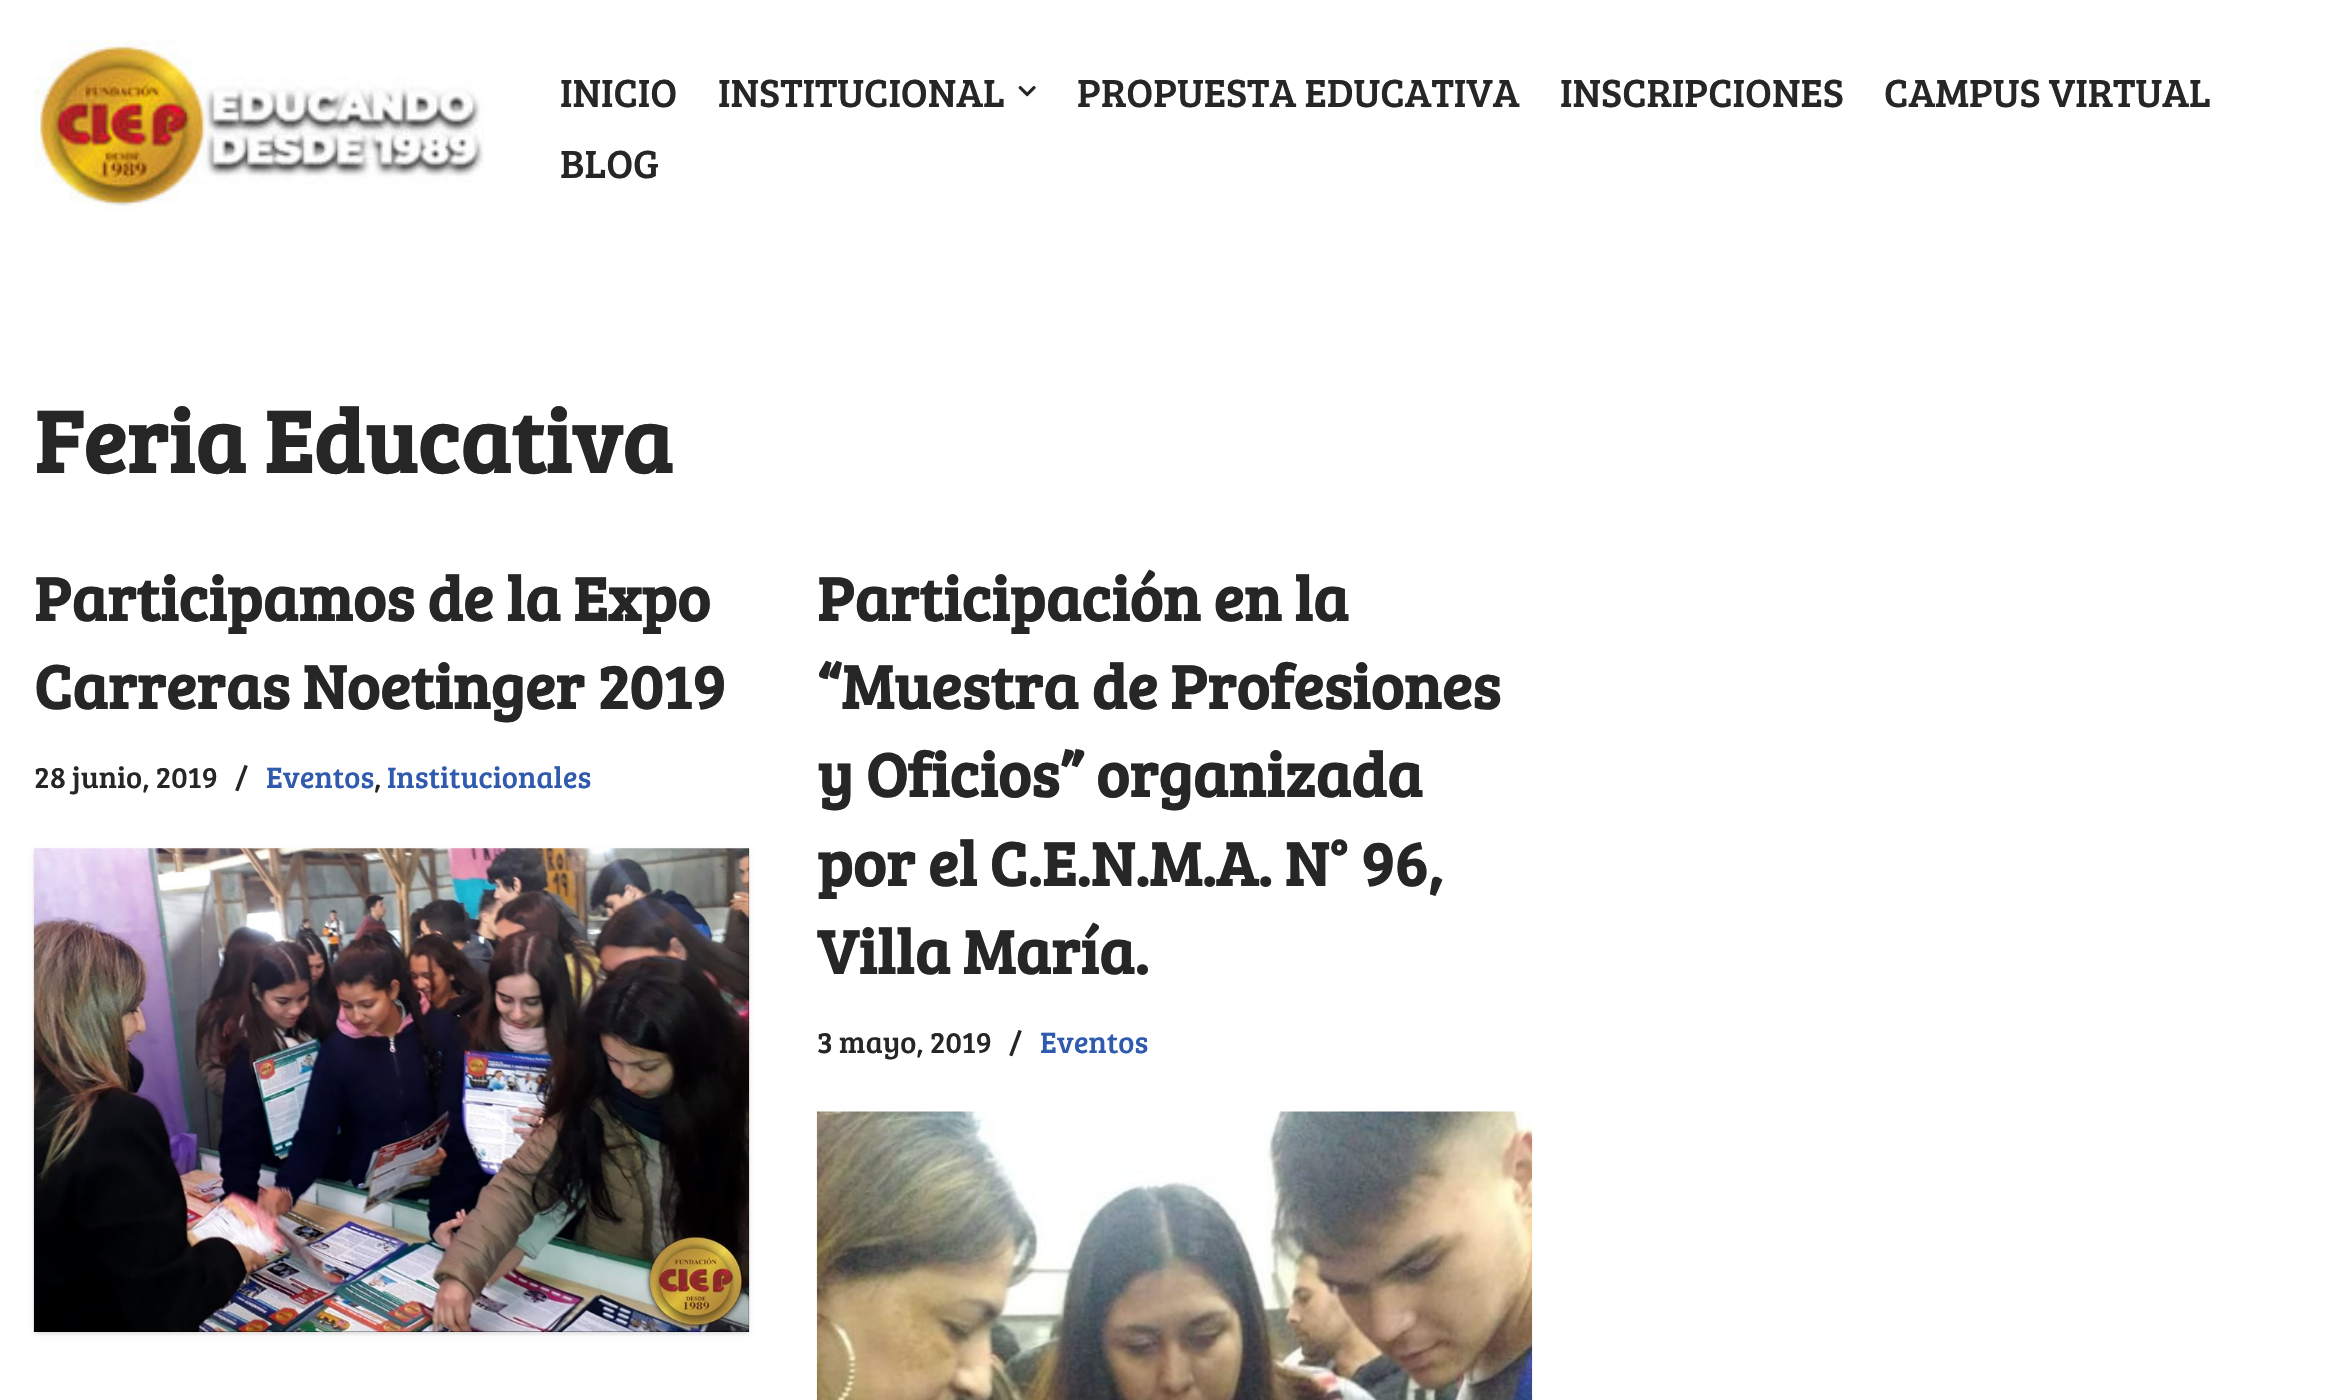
#include "include/core/SkBlurTypes.h"
#include "include/core/SkCanvas.h"
#include "include/core/SkData.h"
#include "include/core/SkFont.h"
#include "include/core/SkFontMgr.h"
#include "include/core/SkImage.h"
#include "include/core/SkMaskFilter.h"
#include "include/core/SkPaint.h"
#include "include/core/SkPathBuilder.h"
#include "include/core/SkTextBlob.h"
#include "include/effects/SkDashPathEffect.h"
#include "include/effects/SkGradientShader.h"
#include "include/utils/SkParsePath.h"

extern sk_sp<SkFontMgr> fontMgr;

void draw(SkCanvas* canvas) {
  SkPaint p;
  p.setAntiAlias(true);
  canvas->clear(SK_ColorWHITE);
  canvas->drawImageRect(SkImages::DeferredFromEncodedData(SkData::MakeFromFileName("images/1.png")), SkRect::MakeLTRB(34, 40, 484, 211), SkSamplingOptions());
  canvas->drawImageRect(SkImages::DeferredFromEncodedData(SkData::MakeFromFileName("images/2.png")), SkRect::MakeLTRB(1018, 85, 1036, 97), SkSamplingOptions());
  p.setColor(SkColorSetARGB(26, 0, 0, 0));
  p.setMaskFilter(SkMaskFilter::MakeBlur(kNormal_SkBlurStyle, 2));
  canvas->drawRect(SkRect::MakeLTRB(34, 851, 749, 1334), p);
  p.setMaskFilter(nullptr);
  p.setColor(SkColorSetARGB(31, 0, 0, 0));
  p.setMaskFilter(SkMaskFilter::MakeBlur(kNormal_SkBlurStyle, 3.5f));
  canvas->drawRect(SkRect::MakeLTRB(38, 855, 745, 1330), p);
  p.setMaskFilter(nullptr);
  canvas->drawImageRect(SkImages::DeferredFromEncodedData(SkData::MakeFromFileName("images/3.png")), SkRect::MakeLTRB(33, 848, 750, 1332), SkSamplingOptions());
  canvas->drawImageRect(SkImages::DeferredFromEncodedData(SkData::MakeFromFileName("images/4.png")), SkRect::MakeLTRB(816, 1111, 1533, 1400), SkSamplingOptions());
  SkFont font1(fontMgr->matchFamilyStyle("Bree Serif", SkFontStyle::Normal()), 40.5f);
  font1.setSubpixel(true);
  p.setColor(SkColorSetRGB(39, 38, 38));
  canvas->drawString("INICIO", 560, 107, font1, p);
  canvas->drawString("INSTITUCIONAL", 718, 107, font1, p);
  canvas->drawString("PROPUESTA EDUCATIVA", 1077, 107, font1, p);
  canvas->drawString("INSCRIPCIONES", 1560, 107, font1, p);
  canvas->drawString("CAMPUS VIRTUAL", 1884, 107, font1, p);
  canvas->drawString("BLOG", 560, 178, font1, p);
  SkFont font2(fontMgr->matchFamilyStyle("Bree Serif", SkFontStyle::Bold()), 90);
  font2.setSubpixel(true);
  canvas->drawString("Feria Educativa", 34, 473, font2, p);
  SkFont font3(fontMgr->matchFamilyStyle("Bree Serif", SkFontStyle::Bold()), 63);
  font3.setSubpixel(true);
  canvas->drawString("Participamos de la Expo", 34, 621, font3, p);
  canvas->drawString("Carreras Noetinger 2019", 34, 709, font3, p);
  SkFont font4(fontMgr->matchFamilyStyle("Bree Serif", SkFontStyle::Normal()), 30.5f);
  font4.setSubpixel(true);
  canvas->drawString("28 junio, 2019", 34, 788, font4, p);
  canvas->drawString("/", 235, 788, font4, p);
  p.setColor(SkColorSetRGB(47, 90, 174));
  canvas->drawString("Eventos", 266, 788, font4, p);
  p.setColor(SkColorSetRGB(39, 38, 38));
  canvas->drawString(",", 374, 788, font4, p);
  p.setColor(SkColorSetRGB(47, 90, 174));
  canvas->drawString("Institucionales", 387, 788, font4, p);
  p.setColor(SkColorSetRGB(39, 38, 38));
  canvas->drawString("Participación en la", 817, 621, font3, p);
  canvas->drawString("“Muestra de Profesiones", 817, 709, font3, p);
  canvas->drawString("y Oficios” organizada", 817, 797, font3, p);
  canvas->drawString("por el C.E.N.M.A. N° 96,", 817, 886, font3, p);
  canvas->drawString("Villa María.", 817, 974, font3, p);
  canvas->drawString("3 mayo, 2019", 817, 1053, font4, p);
  canvas->drawString("/", 1009, 1053, font4, p);
  p.setColor(SkColorSetRGB(47, 90, 174));
  canvas->drawString("Eventos", 1040, 1053, font4, p);
}
